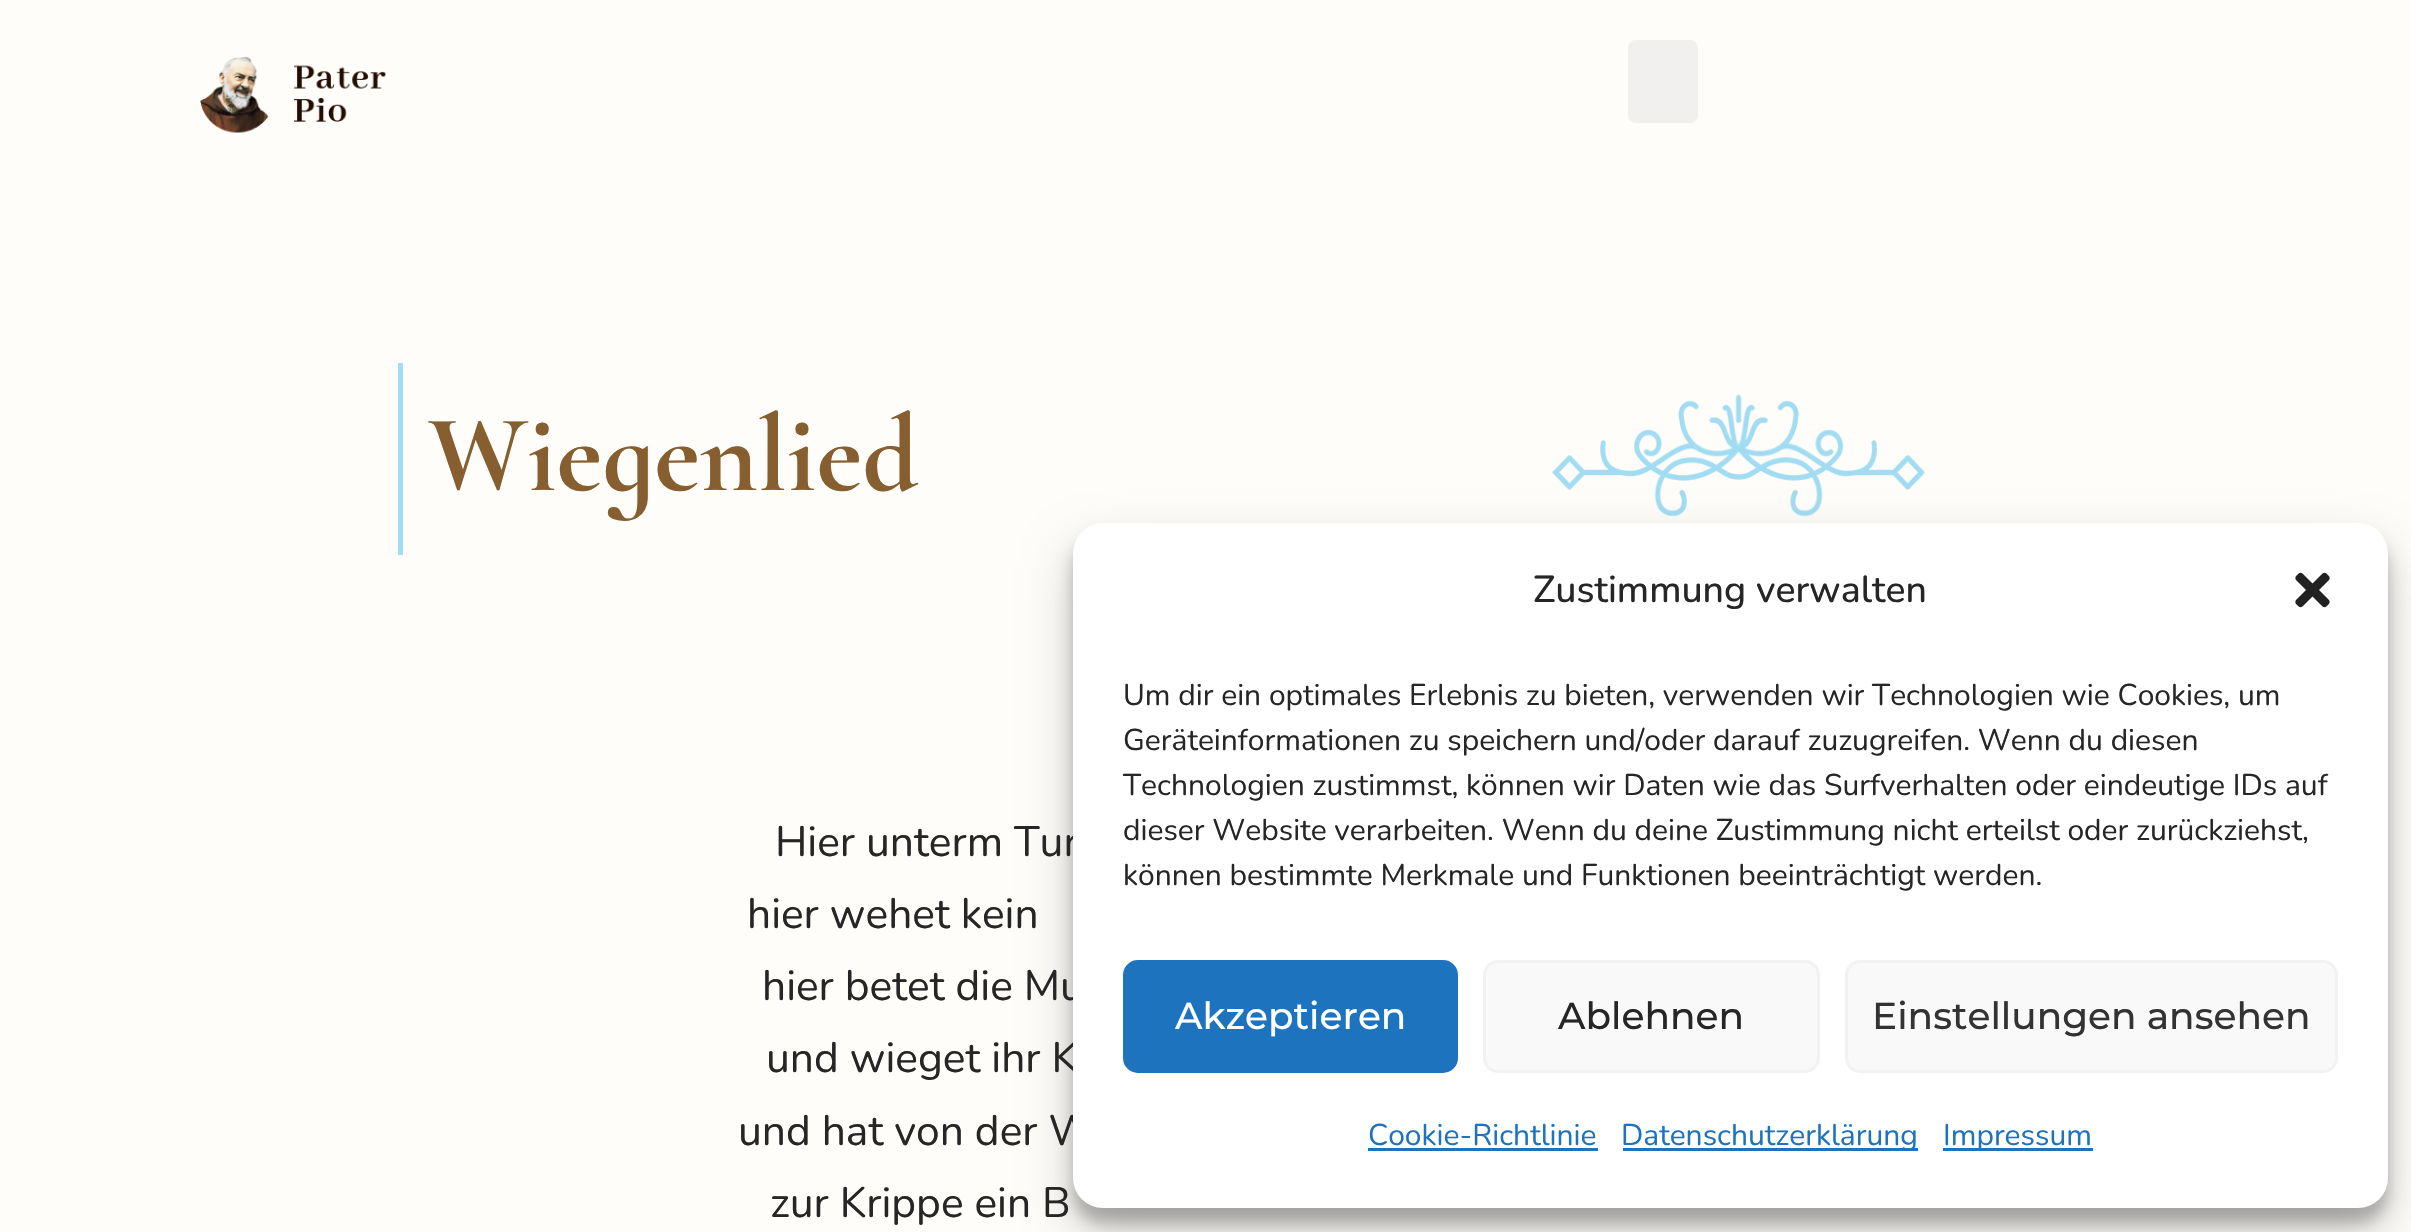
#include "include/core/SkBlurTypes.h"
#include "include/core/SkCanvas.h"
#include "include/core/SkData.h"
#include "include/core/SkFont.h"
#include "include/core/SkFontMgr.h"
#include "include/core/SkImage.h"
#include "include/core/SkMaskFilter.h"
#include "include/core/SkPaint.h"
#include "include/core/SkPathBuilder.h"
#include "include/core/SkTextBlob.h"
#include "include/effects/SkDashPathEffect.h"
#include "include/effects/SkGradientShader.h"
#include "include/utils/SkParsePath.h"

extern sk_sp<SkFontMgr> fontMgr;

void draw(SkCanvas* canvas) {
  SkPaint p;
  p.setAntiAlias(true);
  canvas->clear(SkColorSetRGB(254, 253, 250));
  canvas->drawImageRect(SkImages::DeferredFromEncodedData(SkData::MakeFromFileName("images/1.png")), SkRect::MakeLTRB(200, 56, 386, 133), SkSamplingOptions());
  p.setColor(SkColorSetRGB(241, 240, 238));
  canvas->drawRoundRect(SkRect::MakeLTRB(1628, 40, 1698, 123), 8, 8, p);
  p.setColor(SkColorSetRGB(162, 220, 242));
  canvas->drawRect(SkRect::MakeLTRB(398, 363, 403, 555), p);
  canvas->drawImageRect(SkImages::DeferredFromEncodedData(SkData::MakeFromFileName("images/2.png")), SkRect::MakeLTRB(1552, 394, 1925, 517), SkSamplingOptions());
  p.setColor(SkColorSetARGB(59, 0, 0, 0));
  p.setMaskFilter(SkMaskFilter::MakeBlur(kNormal_SkBlurStyle, 7.5f));
  canvas->drawRoundRect(SkRect::MakeLTRB(1073, 538, 2388, 1223), 30, 30, p);
  p.setMaskFilter(nullptr);
  p.setColor(SkColorSetARGB(48, 0, 0, 0));
  p.setMaskFilter(SkMaskFilter::MakeBlur(kNormal_SkBlurStyle, 25));
  canvas->drawRoundRect(SkRect::MakeLTRB(1073, 548, 2388, 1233), 30, 30, p);
  p.setMaskFilter(nullptr);
  SkFont font1(fontMgr->matchFamilyStyle("Cormorant Infant", SkFontStyle::Bold()), 110);
  font1.setSubpixel(true);
  p.setColor(SkColorSetRGB(134, 94, 47));
  canvas->drawString("Wiegenlied", 428, 490, font1, p);
  SkFont font2(fontMgr->matchFamilyStyle("Nunito", SkFontStyle::Normal()), 42.5f);
  font2.setSubpixel(true);
  p.setColor(SkColorSetRGB(39, 38, 38));
  canvas->drawString("Hier unterm Tur", 775, 856, font2, p);
  canvas->drawString("hier wehet kein", 747, 928, font2, p);
  canvas->drawString("hier betet die Mu", 762, 1000, font2, p);
  canvas->drawString("und wieget ihr K", 766, 1072, font2, p);
  canvas->drawString("und hat von der W", 738, 1145, font2, p);
  canvas->drawString("zur Krippe ein B", 770, 1217, font2, p);
  p.setColor(SK_ColorWHITE);
  canvas->drawRoundRect(SkRect::MakeLTRB(1073, 523, 2388, 1208), 30, 30, p);
  SkFont font3(fontMgr->matchFamilyStyle("Nunito", SkFontStyle(500, SkFontStyle::kNormal_Width, SkFontStyle::kUpright_Slant)), 37.5f);
  font3.setSubpixel(true);
  p.setColor(SkColorSetRGB(39, 38, 38));
  canvas->drawString("Zustimmung verwalten", 1533, 602, font3, p);
  canvas->drawImageRect(SkImages::DeferredFromEncodedData(SkData::MakeFromFileName("images/3.png")), SkRect::MakeLTRB(2295, 572, 2330, 608), SkSamplingOptions());
  SkFont font4(fontMgr->matchFamilyStyle("Nunito", SkFontStyle::Normal()), 30);
  font4.setSubpixel(true);
  canvas->drawString("Um dir ein optimales Erlebnis zu bieten, verwenden wir Technologien wie Cookies, um", 1123, 705, font4, p);
  canvas->drawString("Geräteinformationen zu speichern und/oder darauf zuzugreifen. Wenn du diesen", 1123, 750, font4, p);
  canvas->drawString("Technologien zustimmst, können wir Daten wie das Surfverhalten oder eindeutige IDs auf", 1123, 795, font4, p);
  canvas->drawString("dieser Website verarbeiten. Wenn du deine Zustimmung nicht erteilst oder zurückziehst,", 1123, 840, font4, p);
  canvas->drawString("können bestimmte Merkmale und Funktionen beeinträchtigt werden.", 1123, 885, font4, p);
  p.setColor(SkColorSetRGB(30, 115, 190));
  canvas->drawRoundRect(SkRect::MakeLTRB(1124.5f, 961.5f, 1456.5f, 1071.5f), 13.5f, 13.5f, p);
  p.setStyle(SkPaint::kStroke_Style);
  p.setStrokeWidth(3);
  canvas->drawRoundRect(SkRect::MakeLTRB(1124.5f, 961.5f, 1456.5f, 1071.5f), 13.5f, 13.5f, p);
  SkFont font5(fontMgr->matchFamilyStyle("Montserrat", SkFontStyle(500, SkFontStyle::kNormal_Width, SkFontStyle::kUpright_Slant)), 37.5f);
  font5.setSubpixel(true);
  p.setStyle(SkPaint::kFill_Style);
  p.setColor(SK_ColorWHITE);
  canvas->drawString("Akzeptieren", 1175, 1029, font5, p);
  p.setColor(SkColorSetRGB(249, 249, 249));
  canvas->drawRoundRect(SkRect::MakeLTRB(1484.5f, 961.5f, 1818.5f, 1071.5f), 13.5f, 13.5f, p);
  p.setStyle(SkPaint::kStroke_Style);
  p.setColor(SkColorSetRGB(242, 242, 242));
  canvas->drawRoundRect(SkRect::MakeLTRB(1484.5f, 961.5f, 1818.5f, 1071.5f), 13.5f, 13.5f, p);
  p.setStyle(SkPaint::kFill_Style);
  p.setColor(SkColorSetRGB(39, 38, 38));
  canvas->drawString("Ablehnen", 1558, 1029, font5, p);
  p.setColor(SkColorSetRGB(249, 249, 249));
  canvas->drawRoundRect(SkRect::MakeLTRB(1846.5f, 961.5f, 2336.5f, 1071.5f), 13.5f, 13.5f, p);
  p.setStyle(SkPaint::kStroke_Style);
  p.setColor(SkColorSetRGB(242, 242, 242));
  canvas->drawRoundRect(SkRect::MakeLTRB(1846.5f, 961.5f, 2336.5f, 1071.5f), 13.5f, 13.5f, p);
  p.setStyle(SkPaint::kFill_Style);
  p.setColor(SkColorSetRGB(51, 51, 51));
  canvas->drawString("Einstellungen ansehen", 1872, 1029, font5, p);
  p.setColor(SkColorSetRGB(30, 115, 190));
  canvas->drawString("Cookie-Richtlinie", 1368, 1145, font4, p);
  canvas->drawRect(SkRect::MakeLTRB(1368, 1148, 1598, 1151), p);
  canvas->drawRect(SkRect::MakeLTRB(1623, 1148, 1918, 1151), p);
  canvas->drawString("Datenschutzerklärung", 1621, 1145, font4, p);
  canvas->drawRect(SkRect::MakeLTRB(1943, 1148, 2093, 1151), p);
  canvas->drawString("Impressum", 1943, 1145, font4, p);
}
